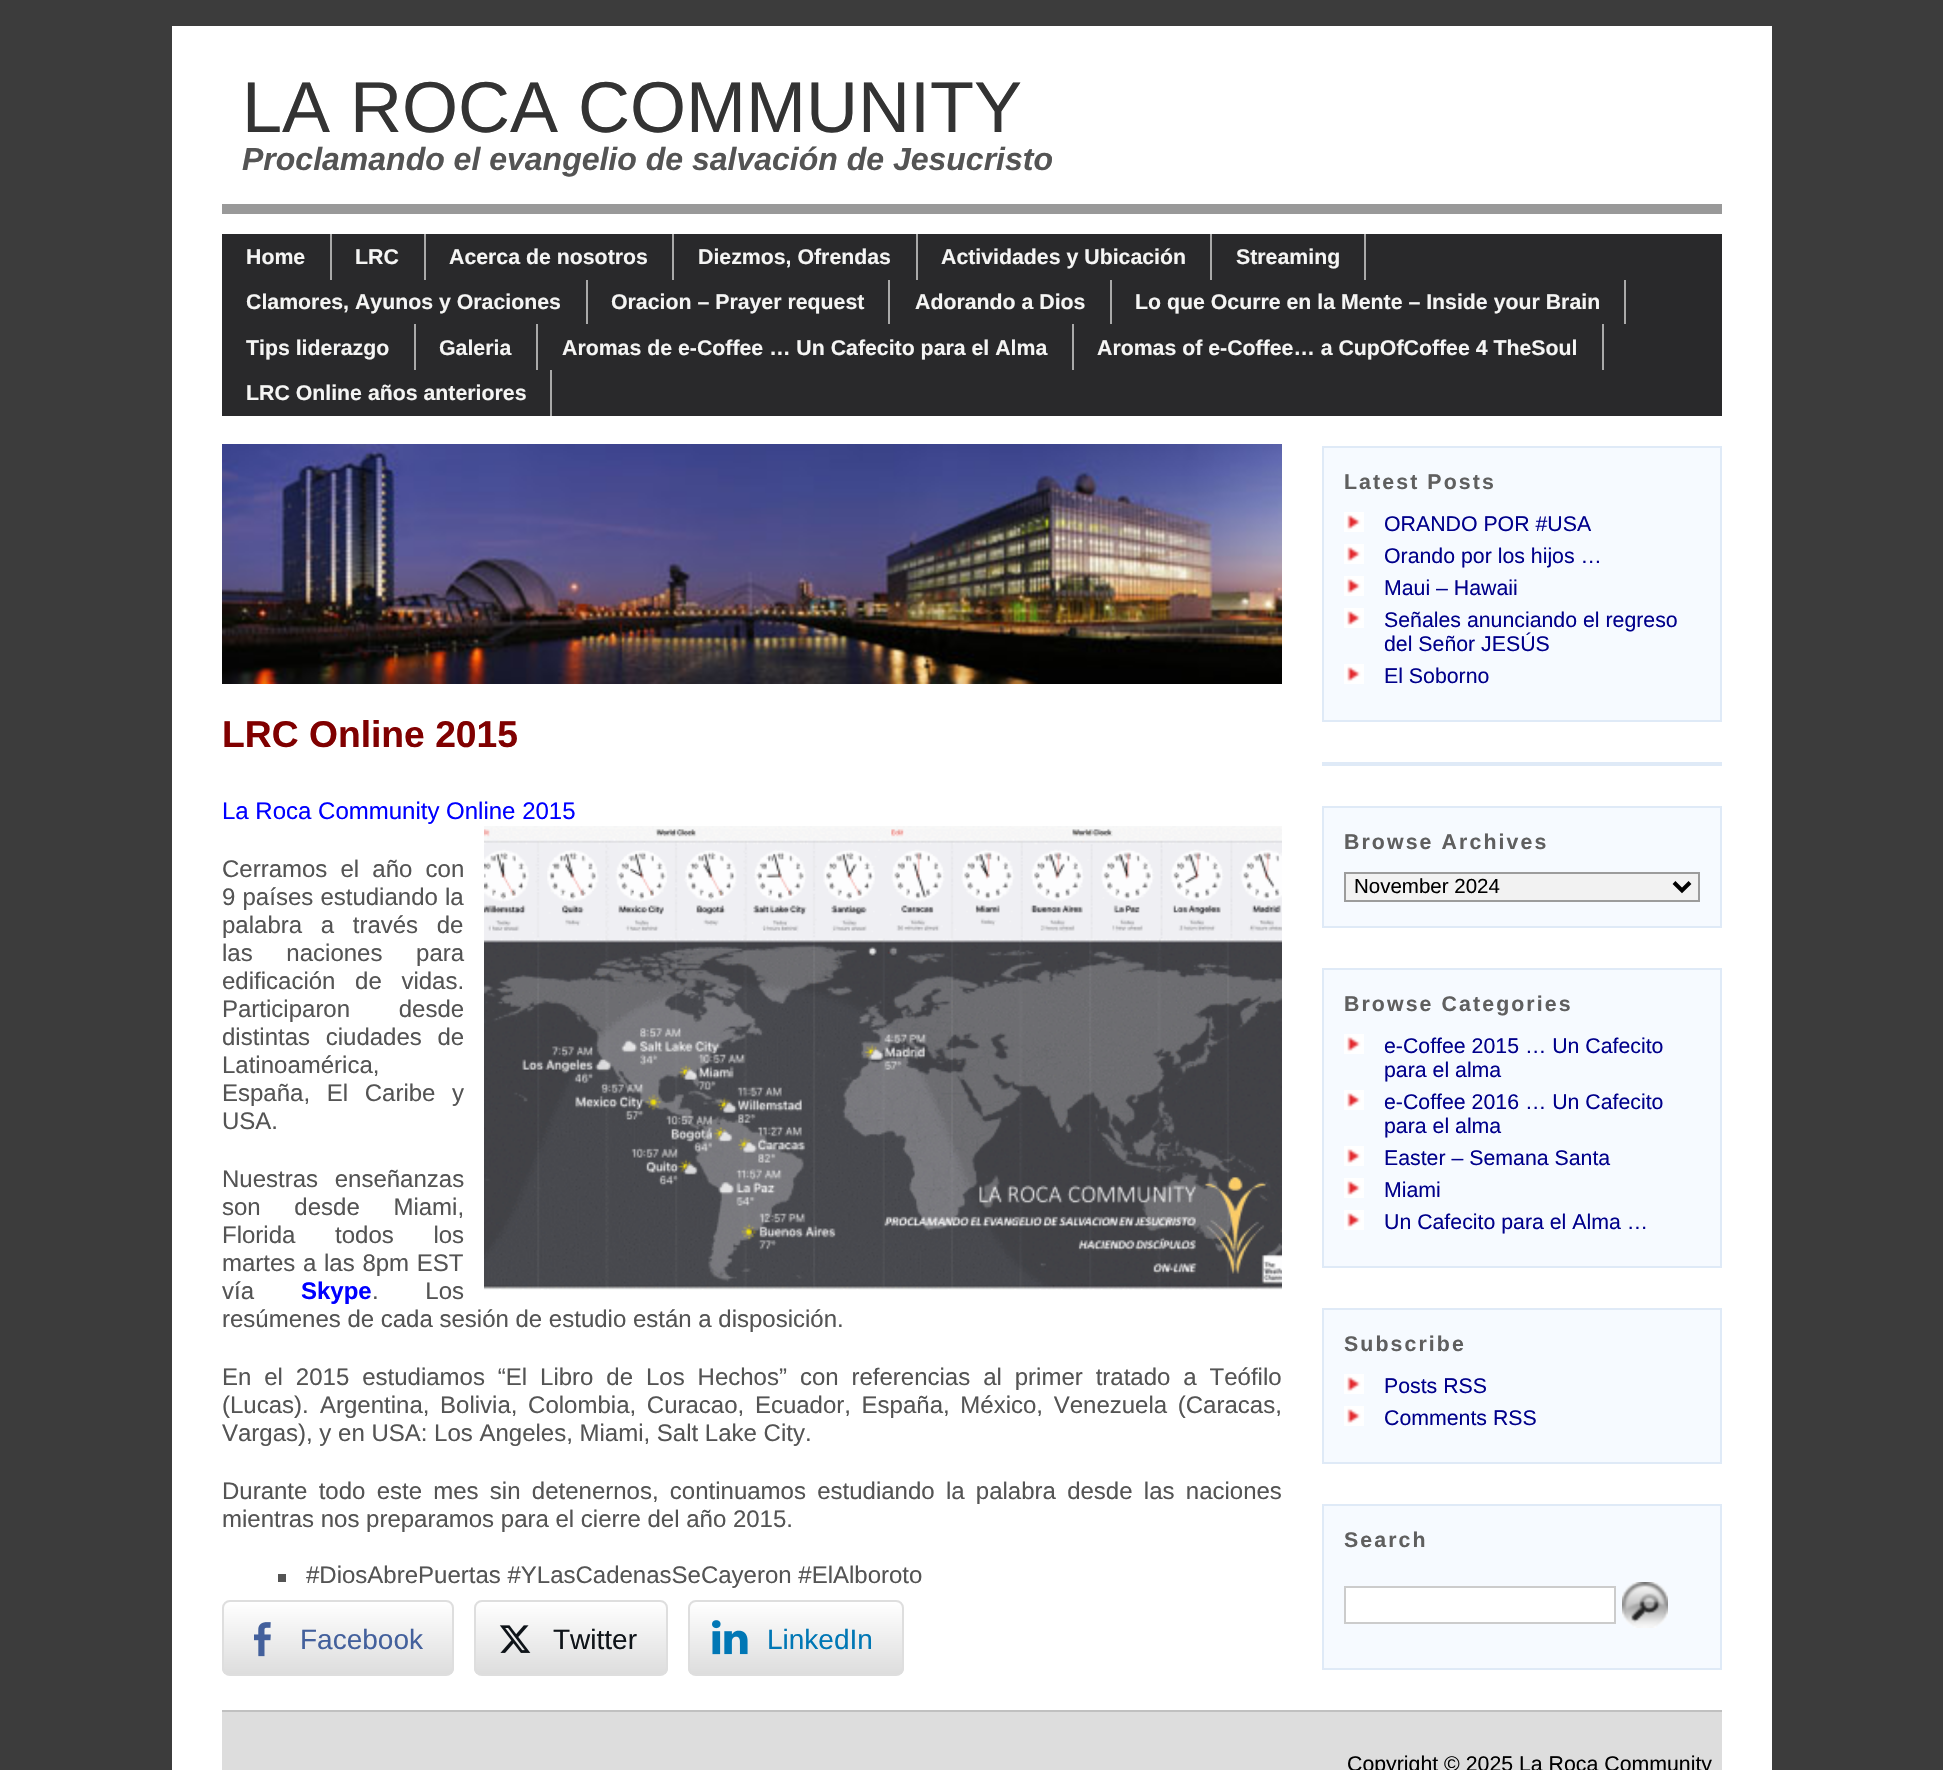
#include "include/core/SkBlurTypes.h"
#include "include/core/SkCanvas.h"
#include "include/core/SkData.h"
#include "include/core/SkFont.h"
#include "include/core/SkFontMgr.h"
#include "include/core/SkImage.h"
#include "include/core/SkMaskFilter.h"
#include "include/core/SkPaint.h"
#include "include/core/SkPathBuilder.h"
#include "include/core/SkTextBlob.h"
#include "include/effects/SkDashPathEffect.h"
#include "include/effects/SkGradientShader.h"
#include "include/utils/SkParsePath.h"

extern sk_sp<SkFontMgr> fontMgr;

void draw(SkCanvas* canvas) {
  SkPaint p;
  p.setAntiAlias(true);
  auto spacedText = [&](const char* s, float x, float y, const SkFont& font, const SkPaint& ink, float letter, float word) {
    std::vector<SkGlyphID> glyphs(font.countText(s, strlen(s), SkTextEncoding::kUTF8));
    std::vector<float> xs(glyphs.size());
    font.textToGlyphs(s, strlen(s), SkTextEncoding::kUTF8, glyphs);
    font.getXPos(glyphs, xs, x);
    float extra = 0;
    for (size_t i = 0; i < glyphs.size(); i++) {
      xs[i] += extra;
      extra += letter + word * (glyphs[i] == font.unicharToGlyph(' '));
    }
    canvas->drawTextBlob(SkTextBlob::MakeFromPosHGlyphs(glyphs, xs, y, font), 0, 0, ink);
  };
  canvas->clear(SkColorSetRGB(60, 60, 60));
  p.setColor(SK_ColorWHITE);
  canvas->drawRect(SkRect::MakeLTRB(172, 26, 1772, 1770), p);
  p.setColor(SkColorSetRGB(153, 153, 153));
  canvas->drawRect(SkRect::MakeLTRB(222, 204, 1722, 214), p);
  p.setColor(SkColorSetRGB(41, 41, 43));
  canvas->drawRect(SkRect::MakeLTRB(222, 234, 1722, 416), p);
  p.setColor(SkColorSetRGB(169, 169, 169));
  canvas->drawRect(SkRect::MakeLTRB(330, 234, 332, 280), p);
  canvas->drawRect(SkRect::MakeLTRB(424, 234, 426, 280), p);
  canvas->drawRect(SkRect::MakeLTRB(672, 234, 674, 280), p);
  canvas->drawRect(SkRect::MakeLTRB(916, 234, 918, 280), p);
  canvas->drawRect(SkRect::MakeLTRB(1210, 234, 1212, 280), p);
  canvas->drawRect(SkRect::MakeLTRB(1364, 234, 1366, 280), p);
  canvas->drawRect(SkRect::MakeLTRB(586, 280, 588, 324), p);
  canvas->drawRect(SkRect::MakeLTRB(888, 280, 890, 324), p);
  canvas->drawRect(SkRect::MakeLTRB(1110, 280, 1112, 324), p);
  canvas->drawRect(SkRect::MakeLTRB(1624, 280, 1626, 324), p);
  canvas->drawRect(SkRect::MakeLTRB(414, 324, 416, 370), p);
  canvas->drawRect(SkRect::MakeLTRB(536, 324, 538, 370), p);
  canvas->drawRect(SkRect::MakeLTRB(1072, 324, 1074, 370), p);
  canvas->drawRect(SkRect::MakeLTRB(1602, 324, 1604, 370), p);
  canvas->drawRect(SkRect::MakeLTRB(550, 370, 552, 416), p);
  canvas->drawImageRect(SkImages::DeferredFromEncodedData(SkData::MakeFromFileName("images/1.png")), SkRect::MakeLTRB(222, 444, 1282, 684), SkSamplingOptions());
  canvas->drawImageRect(SkImages::DeferredFromEncodedData(SkData::MakeFromFileName("images/2.png")), SkRect::MakeLTRB(484, 826, 1282, 1290), SkSamplingOptions());
  p.setColor(SkColorSetRGB(84, 84, 84));
  canvas->drawRect(SkRect::MakeLTRB(278, 1574, 286, 1582), p);
  canvas->save();
  canvas->clipPath(SkPathBuilder().moveTo(230, 1600).lineTo(446, 1600).cubicTo(450.5f, 1600, 454, 1603.5f, 454, 1608).lineTo(454, 1668).cubicTo(454, 1672.5f, 450.5f, 1676, 446, 1676).lineTo(230, 1676).cubicTo(225.5f, 1676, 222, 1672.5f, 222, 1668).lineTo(222, 1608).cubicTo(222, 1603.5f, 225.5f, 1600, 230, 1600).close().detach(), true);
  {
    const SkColor colors[] = {SK_ColorWHITE, SkColorSetRGB(221, 221, 221)};
    const float stops[] = {0, 1};
    const SkPoint ends[] = {{338, 1602}, {338, 1674}};
    p.setShader(SkGradientShader::MakeLinear(ends, colors, stops, 2, SkTileMode::kClamp));
    p.setAlpha(255);
  }
  canvas->drawRect(SkRect::MakeLTRB(222, 1602, 454, 1674), p);
  canvas->restore();
  p.setStyle(SkPaint::kStroke_Style);
  p.setStrokeWidth(2);
  p.setShader(nullptr);
  p.setColor(SkColorSetRGB(222, 222, 222));
  canvas->drawRoundRect(SkRect::MakeLTRB(223, 1601, 453, 1675), 7, 7, p);
  canvas->drawImageRect(SkImages::DeferredFromEncodedData(SkData::MakeFromFileName("images/3.png")), SkRect::MakeLTRB(254, 1622, 271, 1657), SkSamplingOptions());
  canvas->save();
  canvas->clipPath(SkPathBuilder().moveTo(482, 1600).lineTo(660, 1600).cubicTo(664.5f, 1600, 668, 1603.5f, 668, 1608).lineTo(668, 1668).cubicTo(668, 1672.5f, 664.5f, 1676, 660, 1676).lineTo(482, 1676).cubicTo(477.5f, 1676, 474, 1672.5f, 474, 1668).lineTo(474, 1608).cubicTo(474, 1603.5f, 477.5f, 1600, 482, 1600).close().detach(), true);
  p.setStyle(SkPaint::kFill_Style);
  {
    const SkColor colors[] = {SK_ColorWHITE, SkColorSetRGB(221, 221, 221)};
    const float stops[] = {0, 1};
    const SkPoint ends[] = {{571, 1602}, {571, 1674}};
    p.setShader(SkGradientShader::MakeLinear(ends, colors, stops, 2, SkTileMode::kClamp));
    p.setAlpha(255);
  }
  canvas->drawRect(SkRect::MakeLTRB(474, 1602, 668, 1674), p);
  canvas->restore();
  p.setStyle(SkPaint::kStroke_Style);
  p.setShader(nullptr);
  p.setColor(SkColorSetRGB(222, 222, 222));
  canvas->drawRoundRect(SkRect::MakeLTRB(475, 1601, 667, 1675), 7, 7, p);
  canvas->drawImageRect(SkImages::DeferredFromEncodedData(SkData::MakeFromFileName("images/4.png")), SkRect::MakeLTRB(499, 1625, 531, 1653), SkSamplingOptions());
  canvas->save();
  canvas->clipPath(SkPathBuilder().moveTo(696, 1600).lineTo(896, 1600).cubicTo(900.5f, 1600, 904, 1603.5f, 904, 1608).lineTo(904, 1668).cubicTo(904, 1672.5f, 900.5f, 1676, 896, 1676).lineTo(696, 1676).cubicTo(691.5f, 1676, 688, 1672.5f, 688, 1668).lineTo(688, 1608).cubicTo(688, 1603.5f, 691.5f, 1600, 696, 1600).close().detach(), true);
  p.setStyle(SkPaint::kFill_Style);
  {
    const SkColor colors[] = {SK_ColorWHITE, SkColorSetRGB(221, 221, 221)};
    const float stops[] = {0, 1};
    const SkPoint ends[] = {{796, 1602}, {796, 1674}};
    p.setShader(SkGradientShader::MakeLinear(ends, colors, stops, 2, SkTileMode::kClamp));
    p.setAlpha(255);
  }
  canvas->drawRect(SkRect::MakeLTRB(688, 1602, 904, 1674), p);
  canvas->restore();
  p.setStyle(SkPaint::kStroke_Style);
  p.setShader(nullptr);
  p.setColor(SkColorSetRGB(222, 222, 222));
  canvas->drawRoundRect(SkRect::MakeLTRB(689, 1601, 903, 1675), 7, 7, p);
  canvas->drawImageRect(SkImages::DeferredFromEncodedData(SkData::MakeFromFileName("images/5.png")), SkRect::MakeLTRB(712, 1620, 748, 1655), SkSamplingOptions());
  p.setStyle(SkPaint::kFill_Style);
  p.setColor(SkColorSetRGB(246, 250, 255));
  canvas->drawRect(SkRect::MakeLTRB(1323, 447, 1721, 721), p);
  p.setStyle(SkPaint::kStroke_Style);
  p.setColor(SkColorSetRGB(223, 234, 247));
  canvas->drawRect(SkRect::MakeLTRB(1323, 447, 1721, 721), p);
  canvas->drawImageRect(SkImages::DeferredFromEncodedData(SkData::MakeFromFileName("images/6.png")), SkRect::MakeLTRB(1344, 512, 1364, 532), SkSamplingOptions());
  canvas->drawImageRect(SkImages::DeferredFromEncodedData(SkData::MakeFromFileName("images/6.png")), SkRect::MakeLTRB(1344, 544, 1364, 564), SkSamplingOptions());
  canvas->drawImageRect(SkImages::DeferredFromEncodedData(SkData::MakeFromFileName("images/6.png")), SkRect::MakeLTRB(1344, 576, 1364, 596), SkSamplingOptions());
  canvas->drawImageRect(SkImages::DeferredFromEncodedData(SkData::MakeFromFileName("images/6.png")), SkRect::MakeLTRB(1344, 608, 1364, 628), SkSamplingOptions());
  canvas->drawImageRect(SkImages::DeferredFromEncodedData(SkData::MakeFromFileName("images/6.png")), SkRect::MakeLTRB(1344, 664, 1364, 684), SkSamplingOptions());
  p.setStyle(SkPaint::kFill_Style);
  canvas->drawRect(SkRect::MakeLTRB(1322, 762, 1722, 766), p);
  p.setColor(SkColorSetRGB(246, 250, 255));
  canvas->drawRect(SkRect::MakeLTRB(1323, 807, 1721, 927), p);
  p.setStyle(SkPaint::kStroke_Style);
  p.setColor(SkColorSetRGB(223, 234, 247));
  canvas->drawRect(SkRect::MakeLTRB(1323, 807, 1721, 927), p);
  p.setStyle(SkPaint::kFill_Style);
  p.setColor(SkColorSetRGB(242, 242, 242));
  canvas->drawRect(SkRect::MakeLTRB(1345, 873, 1699, 901), p);
  p.setStyle(SkPaint::kStroke_Style);
  p.setColor(SkColorSetRGB(156, 156, 156));
  canvas->drawRect(SkRect::MakeLTRB(1345, 873, 1699, 901), p);
  p.setStrokeWidth(4);
  p.setColor(SK_ColorBLACK);
  canvas->drawPath(SkPathBuilder().moveTo(1674, 882.5f).lineTo(1682, 890.5f).lineTo(1690, 882.5f).detach(), p);
  p.setStyle(SkPaint::kFill_Style);
  p.setColor(SkColorSetRGB(246, 250, 255));
  canvas->drawRect(SkRect::MakeLTRB(1323, 969, 1721, 1267), p);
  p.setStyle(SkPaint::kStroke_Style);
  p.setStrokeWidth(2);
  p.setColor(SkColorSetRGB(223, 234, 247));
  canvas->drawRect(SkRect::MakeLTRB(1323, 969, 1721, 1267), p);
  canvas->drawImageRect(SkImages::DeferredFromEncodedData(SkData::MakeFromFileName("images/6.png")), SkRect::MakeLTRB(1344, 1034, 1364, 1054), SkSamplingOptions());
  canvas->drawImageRect(SkImages::DeferredFromEncodedData(SkData::MakeFromFileName("images/6.png")), SkRect::MakeLTRB(1344, 1090, 1364, 1110), SkSamplingOptions());
  canvas->drawImageRect(SkImages::DeferredFromEncodedData(SkData::MakeFromFileName("images/6.png")), SkRect::MakeLTRB(1344, 1146, 1364, 1166), SkSamplingOptions());
  canvas->drawImageRect(SkImages::DeferredFromEncodedData(SkData::MakeFromFileName("images/6.png")), SkRect::MakeLTRB(1344, 1178, 1364, 1198), SkSamplingOptions());
  canvas->drawImageRect(SkImages::DeferredFromEncodedData(SkData::MakeFromFileName("images/6.png")), SkRect::MakeLTRB(1344, 1210, 1364, 1230), SkSamplingOptions());
  p.setStyle(SkPaint::kFill_Style);
  p.setColor(SkColorSetRGB(246, 250, 255));
  canvas->drawRect(SkRect::MakeLTRB(1323, 1309, 1721, 1463), p);
  p.setStyle(SkPaint::kStroke_Style);
  p.setColor(SkColorSetRGB(223, 234, 247));
  canvas->drawRect(SkRect::MakeLTRB(1323, 1309, 1721, 1463), p);
  canvas->drawImageRect(SkImages::DeferredFromEncodedData(SkData::MakeFromFileName("images/6.png")), SkRect::MakeLTRB(1344, 1374, 1364, 1394), SkSamplingOptions());
  canvas->drawImageRect(SkImages::DeferredFromEncodedData(SkData::MakeFromFileName("images/6.png")), SkRect::MakeLTRB(1344, 1406, 1364, 1426), SkSamplingOptions());
  p.setStyle(SkPaint::kFill_Style);
  p.setColor(SkColorSetRGB(246, 250, 255));
  canvas->drawRect(SkRect::MakeLTRB(1323, 1505, 1721, 1669), p);
  p.setStyle(SkPaint::kStroke_Style);
  p.setColor(SkColorSetRGB(223, 234, 247));
  canvas->drawRect(SkRect::MakeLTRB(1323, 1505, 1721, 1669), p);
  p.setStyle(SkPaint::kFill_Style);
  p.setColor(SK_ColorWHITE);
  canvas->drawRect(SkRect::MakeLTRB(1345, 1587, 1615, 1623), p);
  p.setStyle(SkPaint::kStroke_Style);
  p.setColor(SkColorSetRGB(204, 204, 204));
  canvas->drawRect(SkRect::MakeLTRB(1345, 1587, 1615, 1623), p);
  canvas->drawImageRect(SkImages::DeferredFromEncodedData(SkData::MakeFromFileName("images/7.png")), SkRect::MakeLTRB(1622, 1582, 1668, 1628), SkSamplingOptions());
  p.setStyle(SkPaint::kFill_Style);
  p.setColor(SkColorSetRGB(221, 221, 221));
  canvas->drawRect(SkRect::MakeLTRB(222, 1712, 1722, 1770), p);
  p.setColor(SkColorSetRGB(192, 192, 192));
  canvas->drawRect(SkRect::MakeLTRB(222, 1710, 1722, 1712), p);
  SkFont font1(fontMgr->matchFamilyStyle("Liberation Sans", SkFontStyle::Normal()), 72);
  font1.setSubpixel(true);
  p.setColor(SkColorSetRGB(51, 51, 51));
  canvas->drawString("LA ROCA COMMUNITY", 242, 132, font1, p);
  SkFont font2(fontMgr->matchFamilyStyle("Liberation Sans", SkFontStyle::BoldItalic()), 32);
  font2.setSubpixel(true);
  p.setColor(SkColorSetRGB(84, 84, 84));
  canvas->drawString("Proclamando el evangelio de salvación de Jesucristo", 242, 170, font2, p);
  SkFont font3(fontMgr->matchFamilyStyle("Liberation Sans", SkFontStyle::Bold()), 21.3f);
  font3.setSubpixel(true);
  p.setColor(SkColorSetRGB(245, 245, 244));
  canvas->drawString("Home", 246, 264, font3, p);
  canvas->drawString("LRC", 355, 264, font3, p);
  canvas->drawString("Acerca de nosotros", 449, 264, font3, p);
  canvas->drawString("Diezmos, Ofrendas", 698, 264, font3, p);
  canvas->drawString("Actividades y Ubicación", 941, 264, font3, p);
  canvas->drawString("Streaming", 1236, 264, font3, p);
  canvas->drawString("Clamores, Ayunos y Oraciones", 246, 309, font3, p);
  canvas->drawString("Oracion – Prayer request", 611, 309, font3, p);
  canvas->drawString("Adorando a Dios", 915, 309, font3, p);
  canvas->drawString("Lo que Ocurre en la Mente – Inside your Brain", 1135, 309, font3, p);
  canvas->drawString("Tips liderazgo", 246, 355, font3, p);
  canvas->drawString("Galeria", 439, 355, font3, p);
  canvas->drawString("Aromas de e-Coffee … Un Cafecito para el Alma", 562, 355, font3, p);
  canvas->drawString("Aromas of e-Coffee… a CupOfCoffee 4 TheSoul", 1097, 355, font3, p);
  canvas->drawString("LRC Online años anteriores", 246, 400, font3, p);
  SkFont font4(fontMgr->matchFamilyStyle("Liberation Sans", SkFontStyle::Bold()), 37.25f);
  font4.setSubpixel(true);
  p.setColor(SkColorSetRGB(128, 0, 0));
  canvas->drawString("LRC Online 2015", 222, 747, font4, p);
  SkFont font5(fontMgr->matchFamilyStyle("Liberation Sans", SkFontStyle::Normal()), 24);
  font5.setSubpixel(true);
  p.setColor(SkColorSetRGB(0, 0, 255));
  canvas->drawString("La Roca Community Online 2015", 222, 819, font5, p);
  p.setColor(SkColorSetRGB(84, 84, 84));
  spacedText("Cerramos el año con", 222, 877, font5, p, 0, 6.5f);
  spacedText("9 países estudiando la", 222, 905, font5, p, 0, 0.5f);
  spacedText("palabra a través de", 222, 933, font5, p, 0, 12);
  spacedText("las naciones para", 222, 961, font5, p, 0, 27);
  spacedText("edificación de vidas.", 222, 989, font5, p, 0, 13);
  spacedText("Participaron desde", 222, 1017, font5, p, 0, 42);
  spacedText("distintas ciudades de", 222, 1045, font5, p, 0, 9);
  canvas->drawString("Latinoamérica,", 222, 1073, font5, p);
  spacedText("España, El Caribe y", 222, 1101, font5, p, 0, 10);
  canvas->drawString("USA.", 222, 1129, font5, p);
  spacedText("Nuestras enseñanzas", 222, 1187, font5, p, 0, 10);
  spacedText("son desde Miami,", 222, 1215, font5, p, 0, 27);
  spacedText("Florida todos los", 222, 1243, font5, p, 0, 33);
  spacedText("martes a las 8pm EST", 222, 1271, font5, p, 0, 1);
  canvas->drawString("vía", 222, 1299, font5, p);
  SkFont font6(fontMgr->matchFamilyStyle("Liberation Sans", SkFontStyle::Bold()), 24);
  font6.setSubpixel(true);
  p.setColor(SkColorSetRGB(0, 0, 255));
  canvas->drawString("Skype", 301, 1299, font6, p);
  p.setColor(SkColorSetRGB(84, 84, 84));
  spacedText(". Los", 372, 1299, font5, p, 0, 40);
  canvas->drawString("resúmenes de cada sesión de estudio están a disposición.", 222, 1327, font5, p);
  spacedText("En el 2015 estudiamos “El Libro de Los Hechos” con referencias al primer tratado a Teófilo", 222, 1385, font5, p, 0, 6.25f);
  canvas->drawString("(Lucas).", 222, 1413, font5, p);
  spacedText("Argentina, Bolivia, Colombia, Curacao, Ecuador, España, México, Venezuela (Caracas,", 320, 1413, font5, p, 0, 4);
  canvas->drawString("Vargas), y en USA: Los Angeles, Miami, Salt Lake City.", 222, 1441, font5, p);
  spacedText("Durante todo este mes sin detenernos, continuamos estudiando la palabra desde las naciones", 222, 1499, font5, p, 0, 4.6f);
  canvas->drawString("mientras nos preparamos para el cierre del año 2015.", 222, 1527, font5, p);
  canvas->drawString("#DiosAbrePuertas #YLasCadenasSeCayeron #ElAlboroto", 306, 1583, font5, p);
  SkFont font7(fontMgr->matchFamilyStyle("Liberation Sans", SkFontStyle::Normal()), 28);
  font7.setSubpixel(true);
  p.setColor(SkColorSetRGB(67, 96, 156));
  canvas->drawString("Facebook", 300, 1649, font7, p);
  p.setColor(SkColorSetRGB(15, 20, 25));
  canvas->drawString("Twitter", 553, 1649, font7, p);
  p.setColor(SkColorSetRGB(0, 119, 181));
  canvas->drawString("LinkedIn", 767, 1649, font7, p);
  p.setColor(SkColorSetRGB(95, 95, 95));
  spacedText("Latest Posts", 1344, 489, font3, p, 2.1f, 0);
  SkFont font8(fontMgr->matchFamilyStyle("Liberation Sans", SkFontStyle::Normal()), 21.3f);
  font8.setSubpixel(true);
  p.setColor(SkColorSetRGB(0, 0, 139));
  canvas->drawString("ORANDO POR #USA", 1384, 531, font8, p);
  canvas->drawString("Orando por los hijos …", 1384, 563, font8, p);
  canvas->drawString("Maui – Hawaii", 1384, 595, font8, p);
  canvas->drawString("Señales anunciando el regreso", 1384, 627, font8, p);
  canvas->drawString("del Señor JESÚS", 1384, 651, font8, p);
  canvas->drawString("El Soborno", 1384, 683, font8, p);
  p.setColor(SkColorSetRGB(95, 95, 95));
  spacedText("Browse Archives", 1344, 849, font3, p, 2.1f, 0);
  SkFont font9(fontMgr->matchFamilyStyle("Liberation Sans", SkFontStyle::Normal()), 20.5f);
  font9.setSubpixel(true);
  p.setColor(SK_ColorBLACK);
  canvas->drawString("November 2024", 1354, 893, font9, p);
  p.setColor(SkColorSetRGB(95, 95, 95));
  spacedText("Browse Categories", 1344, 1011, font3, p, 2.1f, 0);
  p.setColor(SkColorSetRGB(0, 0, 139));
  canvas->drawString("e-Coffee 2015 … Un Cafecito", 1384, 1053, font8, p);
  canvas->drawString("para el alma", 1384, 1077, font8, p);
  canvas->drawString("e-Coffee 2016 … Un Cafecito", 1384, 1109, font8, p);
  canvas->drawString("para el alma", 1384, 1133, font8, p);
  canvas->drawString("Easter – Semana Santa", 1384, 1165, font8, p);
  canvas->drawString("Miami", 1384, 1197, font8, p);
  canvas->drawString("Un Cafecito para el Alma …", 1384, 1229, font8, p);
  p.setColor(SkColorSetRGB(95, 95, 95));
  spacedText("Subscribe", 1344, 1351, font3, p, 2.1f, 0);
  p.setColor(SkColorSetRGB(0, 0, 139));
  canvas->drawString("Posts RSS", 1384, 1393, font8, p);
  canvas->drawString("Comments RSS", 1384, 1425, font8, p);
  p.setColor(SkColorSetRGB(95, 95, 95));
  spacedText("Search", 1344, 1547, font3, p, 2.1f, 0);
  p.setColor(SK_ColorBLACK);
  canvas->drawString("Copyright © 2025 La Roca Community", 1347, 1771, font8, p);
}
